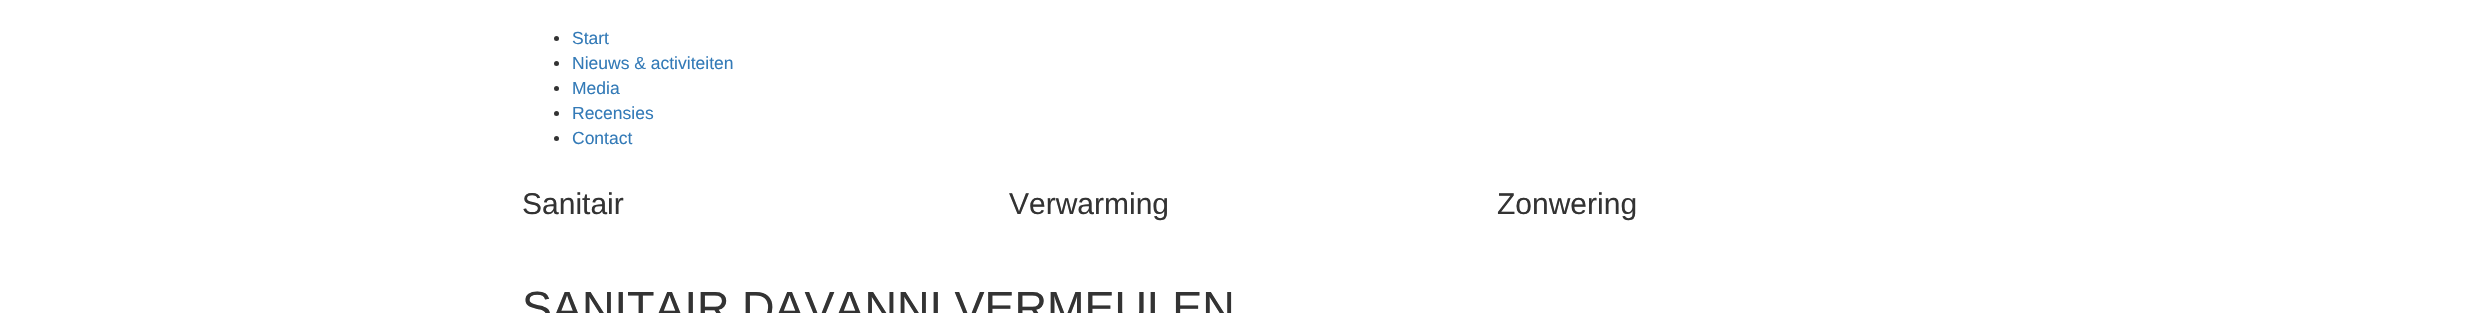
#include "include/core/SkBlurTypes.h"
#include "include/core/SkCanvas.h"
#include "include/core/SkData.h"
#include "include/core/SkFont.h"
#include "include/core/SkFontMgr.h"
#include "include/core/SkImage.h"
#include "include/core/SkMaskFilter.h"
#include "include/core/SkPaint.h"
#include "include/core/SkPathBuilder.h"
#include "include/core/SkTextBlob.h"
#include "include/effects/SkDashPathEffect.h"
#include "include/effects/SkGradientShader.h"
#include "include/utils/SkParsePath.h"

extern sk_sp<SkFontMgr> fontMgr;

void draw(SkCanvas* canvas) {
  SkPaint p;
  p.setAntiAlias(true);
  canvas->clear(SK_ColorWHITE);
  p.setColor(SkColorSetRGB(51, 51, 51));
  canvas->drawCircle(556.5f, 38.5f, 2.5f, p);
  canvas->drawCircle(556.5f, 63.5f, 2.5f, p);
  canvas->drawCircle(556.5f, 88.5f, 2.5f, p);
  canvas->drawCircle(556.5f, 113.5f, 2.5f, p);
  canvas->drawCircle(556.5f, 138.5f, 2.5f, p);
  SkFont font1(fontMgr->matchFamilyStyle("Liberation Sans", SkFontStyle::Normal()), 17.5f);
  font1.setSubpixel(true);
  p.setColor(SkColorSetRGB(51, 122, 183));
  canvas->drawString("Start", 572, 44, font1, p);
  canvas->drawString("Nieuws & activiteiten", 572, 69, font1, p);
  canvas->drawString("Media", 572, 94, font1, p);
  canvas->drawString("Recensies", 572, 119, font1, p);
  canvas->drawString("Contact", 572, 144, font1, p);
  SkFont font2(fontMgr->matchFamilyStyle("Liberation Sans", SkFontStyle::Normal()), 30);
  font2.setSubpixel(true);
  p.setColor(SkColorSetRGB(51, 51, 51));
  canvas->drawString("Sanitair", 522, 214, font2, p);
  canvas->drawString("Verwarming", 1009, 214, font2, p);
  canvas->drawString("Zonwering", 1497, 214, font2, p);
  SkFont font3(fontMgr->matchFamilyStyle("Liberation Sans", SkFontStyle::Normal()), 45);
  font3.setSubpixel(true);
  canvas->drawString("SANITAIR DAVANNI VERMEULEN", 522, 323, font3, p);
}
